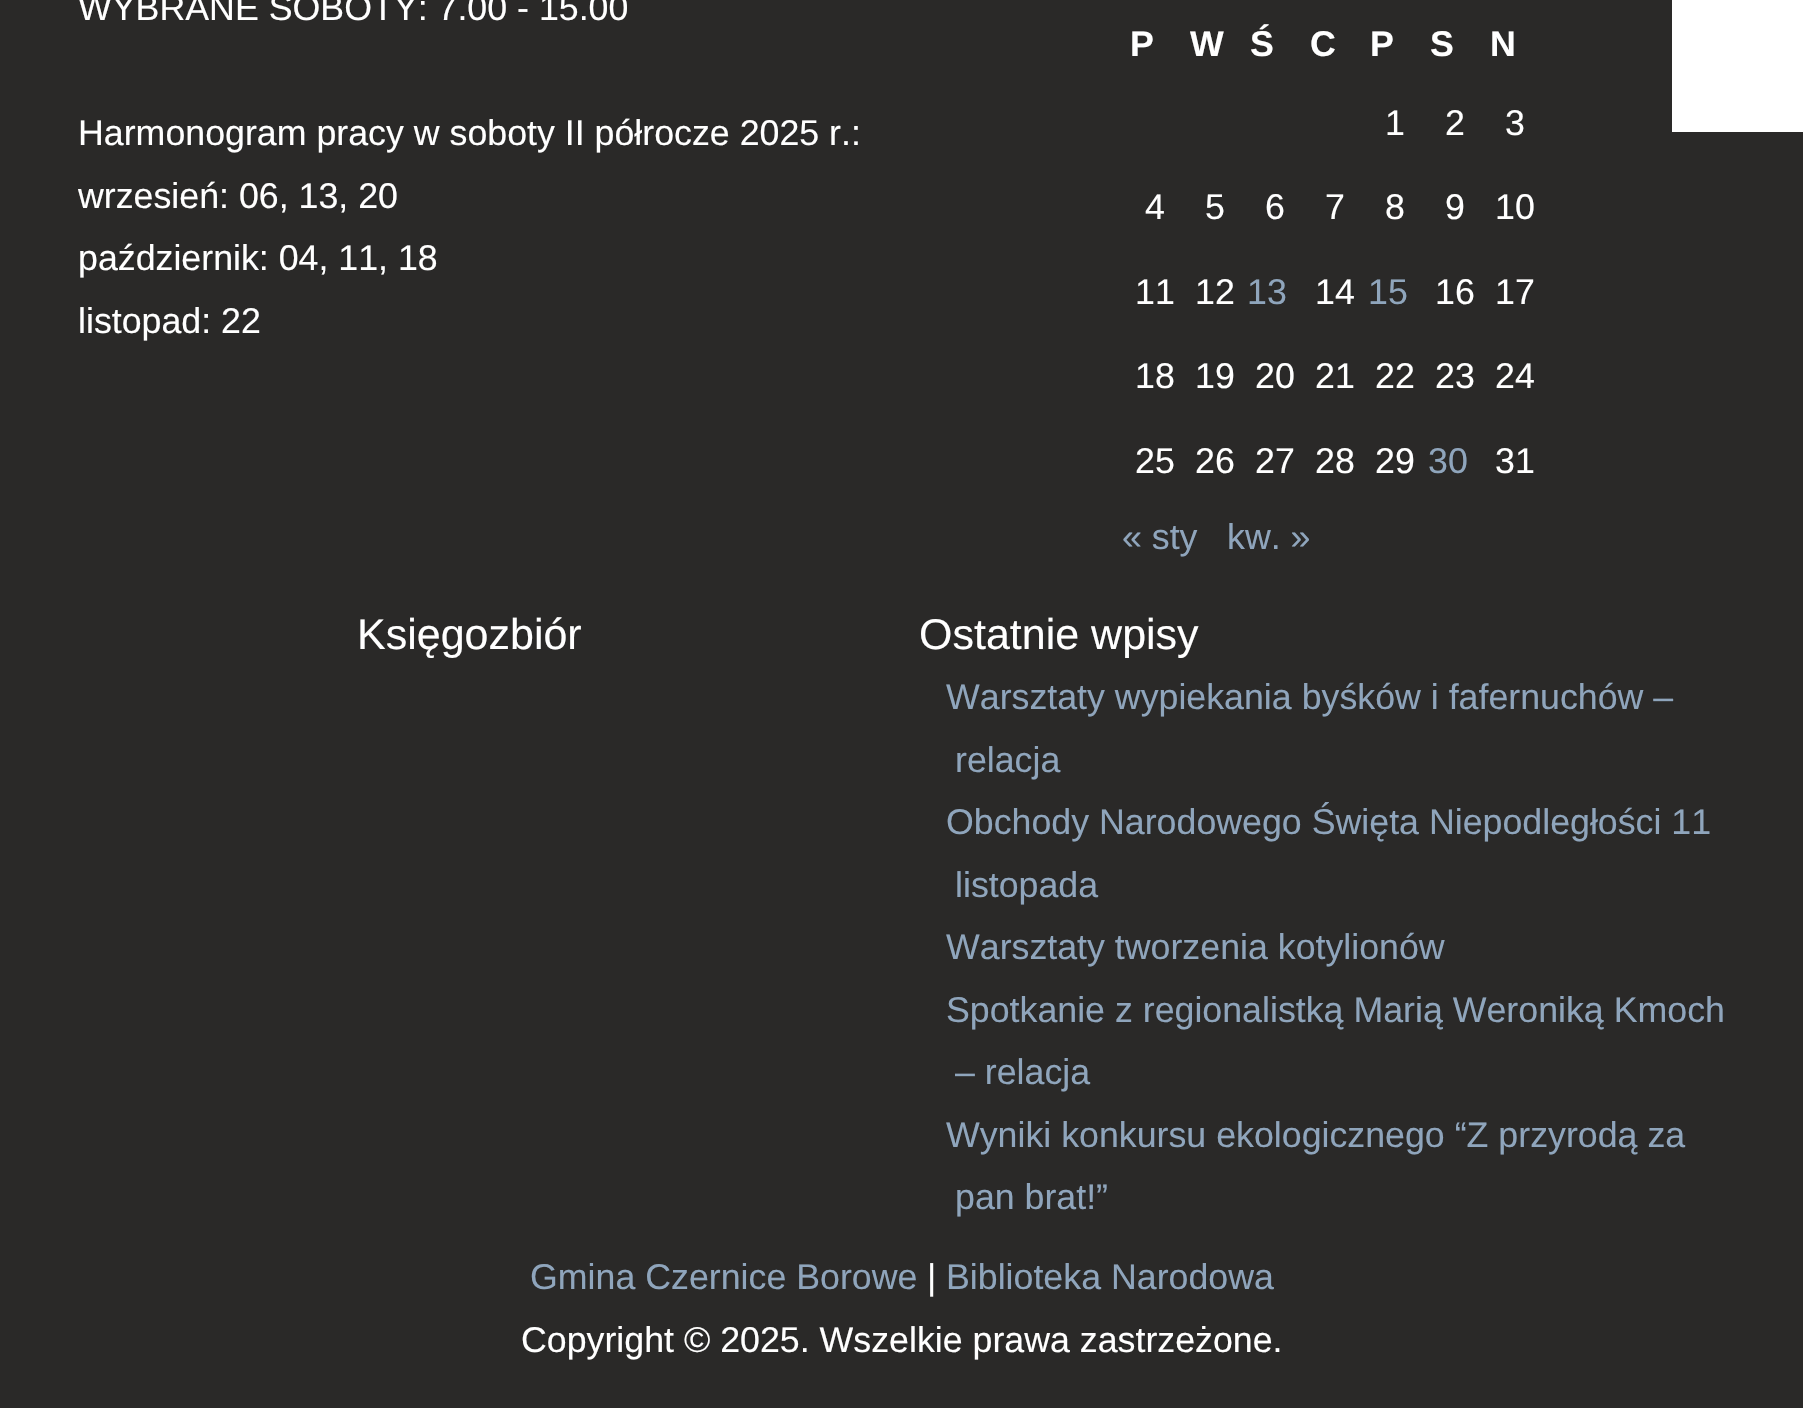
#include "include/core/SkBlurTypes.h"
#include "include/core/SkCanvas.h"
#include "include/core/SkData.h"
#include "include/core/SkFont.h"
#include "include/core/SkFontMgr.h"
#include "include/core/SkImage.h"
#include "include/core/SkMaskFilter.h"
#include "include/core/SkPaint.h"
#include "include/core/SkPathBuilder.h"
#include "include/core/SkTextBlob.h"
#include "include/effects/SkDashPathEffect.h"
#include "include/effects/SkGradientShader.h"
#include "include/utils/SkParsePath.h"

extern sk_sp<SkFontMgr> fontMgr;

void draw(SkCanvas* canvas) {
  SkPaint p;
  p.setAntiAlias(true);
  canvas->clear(SkColorSetRGB(42, 41, 40));
  p.setColor(SK_ColorWHITE);
  canvas->drawRect(SkRect::MakeLTRB(1672, 0, 1803, 132), p);
  SkFont font1(fontMgr->matchFamilyStyle("Liberation Sans", SkFontStyle::Normal()), 35.75f);
  font1.setSubpixel(true);
  canvas->drawString("WYBRANE SOBOTY: 7.00 - 15.00", 78, 20, font1, p);
  canvas->drawString("Harmonogram pracy w soboty II półrocze 2025 r.:", 78, 145, font1, p);
  canvas->drawString("wrzesień: 06, 13, 20", 78, 208, font1, p);
  canvas->drawString("październik: 04, 11, 18", 78, 270, font1, p);
  canvas->drawString("listopad: 22", 78, 333, font1, p);
  SkFont font2(fontMgr->matchFamilyStyle("Liberation Sans", SkFontStyle::Bold()), 35.75f);
  font2.setSubpixel(true);
  canvas->drawString("P", 1130, 56, font2, p);
  canvas->drawString("W", 1190, 56, font2, p);
  canvas->drawString("Ś", 1250, 56, font2, p);
  canvas->drawString("C", 1310, 56, font2, p);
  canvas->drawString("P", 1370, 56, font2, p);
  canvas->drawString("S", 1430, 56, font2, p);
  canvas->drawString("N", 1490, 56, font2, p);
  canvas->drawString("1", 1385, 135, font1, p);
  canvas->drawString("2", 1445, 135, font1, p);
  canvas->drawString("3", 1505, 135, font1, p);
  canvas->drawString("4", 1145, 219, font1, p);
  canvas->drawString("5", 1205, 219, font1, p);
  canvas->drawString("6", 1265, 219, font1, p);
  canvas->drawString("7", 1325, 219, font1, p);
  canvas->drawString("8", 1385, 219, font1, p);
  canvas->drawString("9", 1445, 219, font1, p);
  canvas->drawString("10", 1495, 219, font1, p);
  canvas->drawString("11", 1135, 304, font1, p);
  canvas->drawString("12", 1195, 304, font1, p);
  p.setColor(SkColorSetRGB(143, 165, 188));
  canvas->drawString("13", 1247, 304, font1, p);
  p.setColor(SK_ColorWHITE);
  canvas->drawString("14", 1315, 304, font1, p);
  p.setColor(SkColorSetRGB(143, 165, 188));
  canvas->drawString("15", 1368, 304, font1, p);
  p.setColor(SK_ColorWHITE);
  canvas->drawString("16", 1435, 304, font1, p);
  canvas->drawString("17", 1495, 304, font1, p);
  canvas->drawString("18", 1135, 388, font1, p);
  canvas->drawString("19", 1195, 388, font1, p);
  canvas->drawString("20", 1255, 388, font1, p);
  canvas->drawString("21", 1315, 388, font1, p);
  canvas->drawString("22", 1375, 388, font1, p);
  canvas->drawString("23", 1435, 388, font1, p);
  canvas->drawString("24", 1495, 388, font1, p);
  canvas->drawString("25", 1135, 473, font1, p);
  canvas->drawString("26", 1195, 473, font1, p);
  canvas->drawString("27", 1255, 473, font1, p);
  canvas->drawString("28", 1315, 473, font1, p);
  canvas->drawString("29", 1375, 473, font1, p);
  p.setColor(SkColorSetRGB(143, 165, 188));
  canvas->drawString("30", 1428, 473, font1, p);
  p.setColor(SK_ColorWHITE);
  canvas->drawString("31", 1495, 473, font1, p);
  p.setColor(SkColorSetRGB(143, 165, 188));
  canvas->drawString("« sty", 1122, 549, font1, p);
  canvas->drawString("kw. »", 1227, 549, font1, p);
  SkFont font3(fontMgr->matchFamilyStyle("Liberation Sans", SkFontStyle::Normal()), 43);
  font3.setSubpixel(true);
  p.setColor(SK_ColorWHITE);
  canvas->drawString("Księgozbiór", 357, 649, font3, p);
  canvas->drawString("Ostatnie wpisy", 919, 649, font3, p);
  p.setColor(SkColorSetRGB(143, 165, 188));
  canvas->drawString("Warsztaty wypiekania byśków i fafernuchów –", 946, 709, font1, p);
  canvas->drawString("relacja", 955, 772, font1, p);
  canvas->drawString("Obchody Narodowego Święta Niepodległości 11", 946, 834, font1, p);
  canvas->drawString("listopada", 955, 897, font1, p);
  canvas->drawString("Warsztaty tworzenia kotylionów", 946, 959, font1, p);
  canvas->drawString("Spotkanie z regionalistką Marią Weroniką Kmoch", 946, 1022, font1, p);
  canvas->drawString("– relacja", 955, 1084, font1, p);
  canvas->drawString("Wyniki konkursu ekologicznego “Z przyrodą za", 946, 1147, font1, p);
  canvas->drawString("pan brat!”", 955, 1209, font1, p);
  canvas->drawString("Gmina Czernice Borowe", 530, 1289, font1, p);
  p.setColor(SK_ColorWHITE);
  canvas->drawString("|", 927, 1289, font1, p);
  p.setColor(SkColorSetRGB(143, 165, 188));
  canvas->drawString("Biblioteka Narodowa", 946, 1289, font1, p);
  p.setColor(SK_ColorWHITE);
  canvas->drawString("Copyright © 2025. Wszelkie prawa zastrzeżone.", 521, 1352, font1, p);
}
